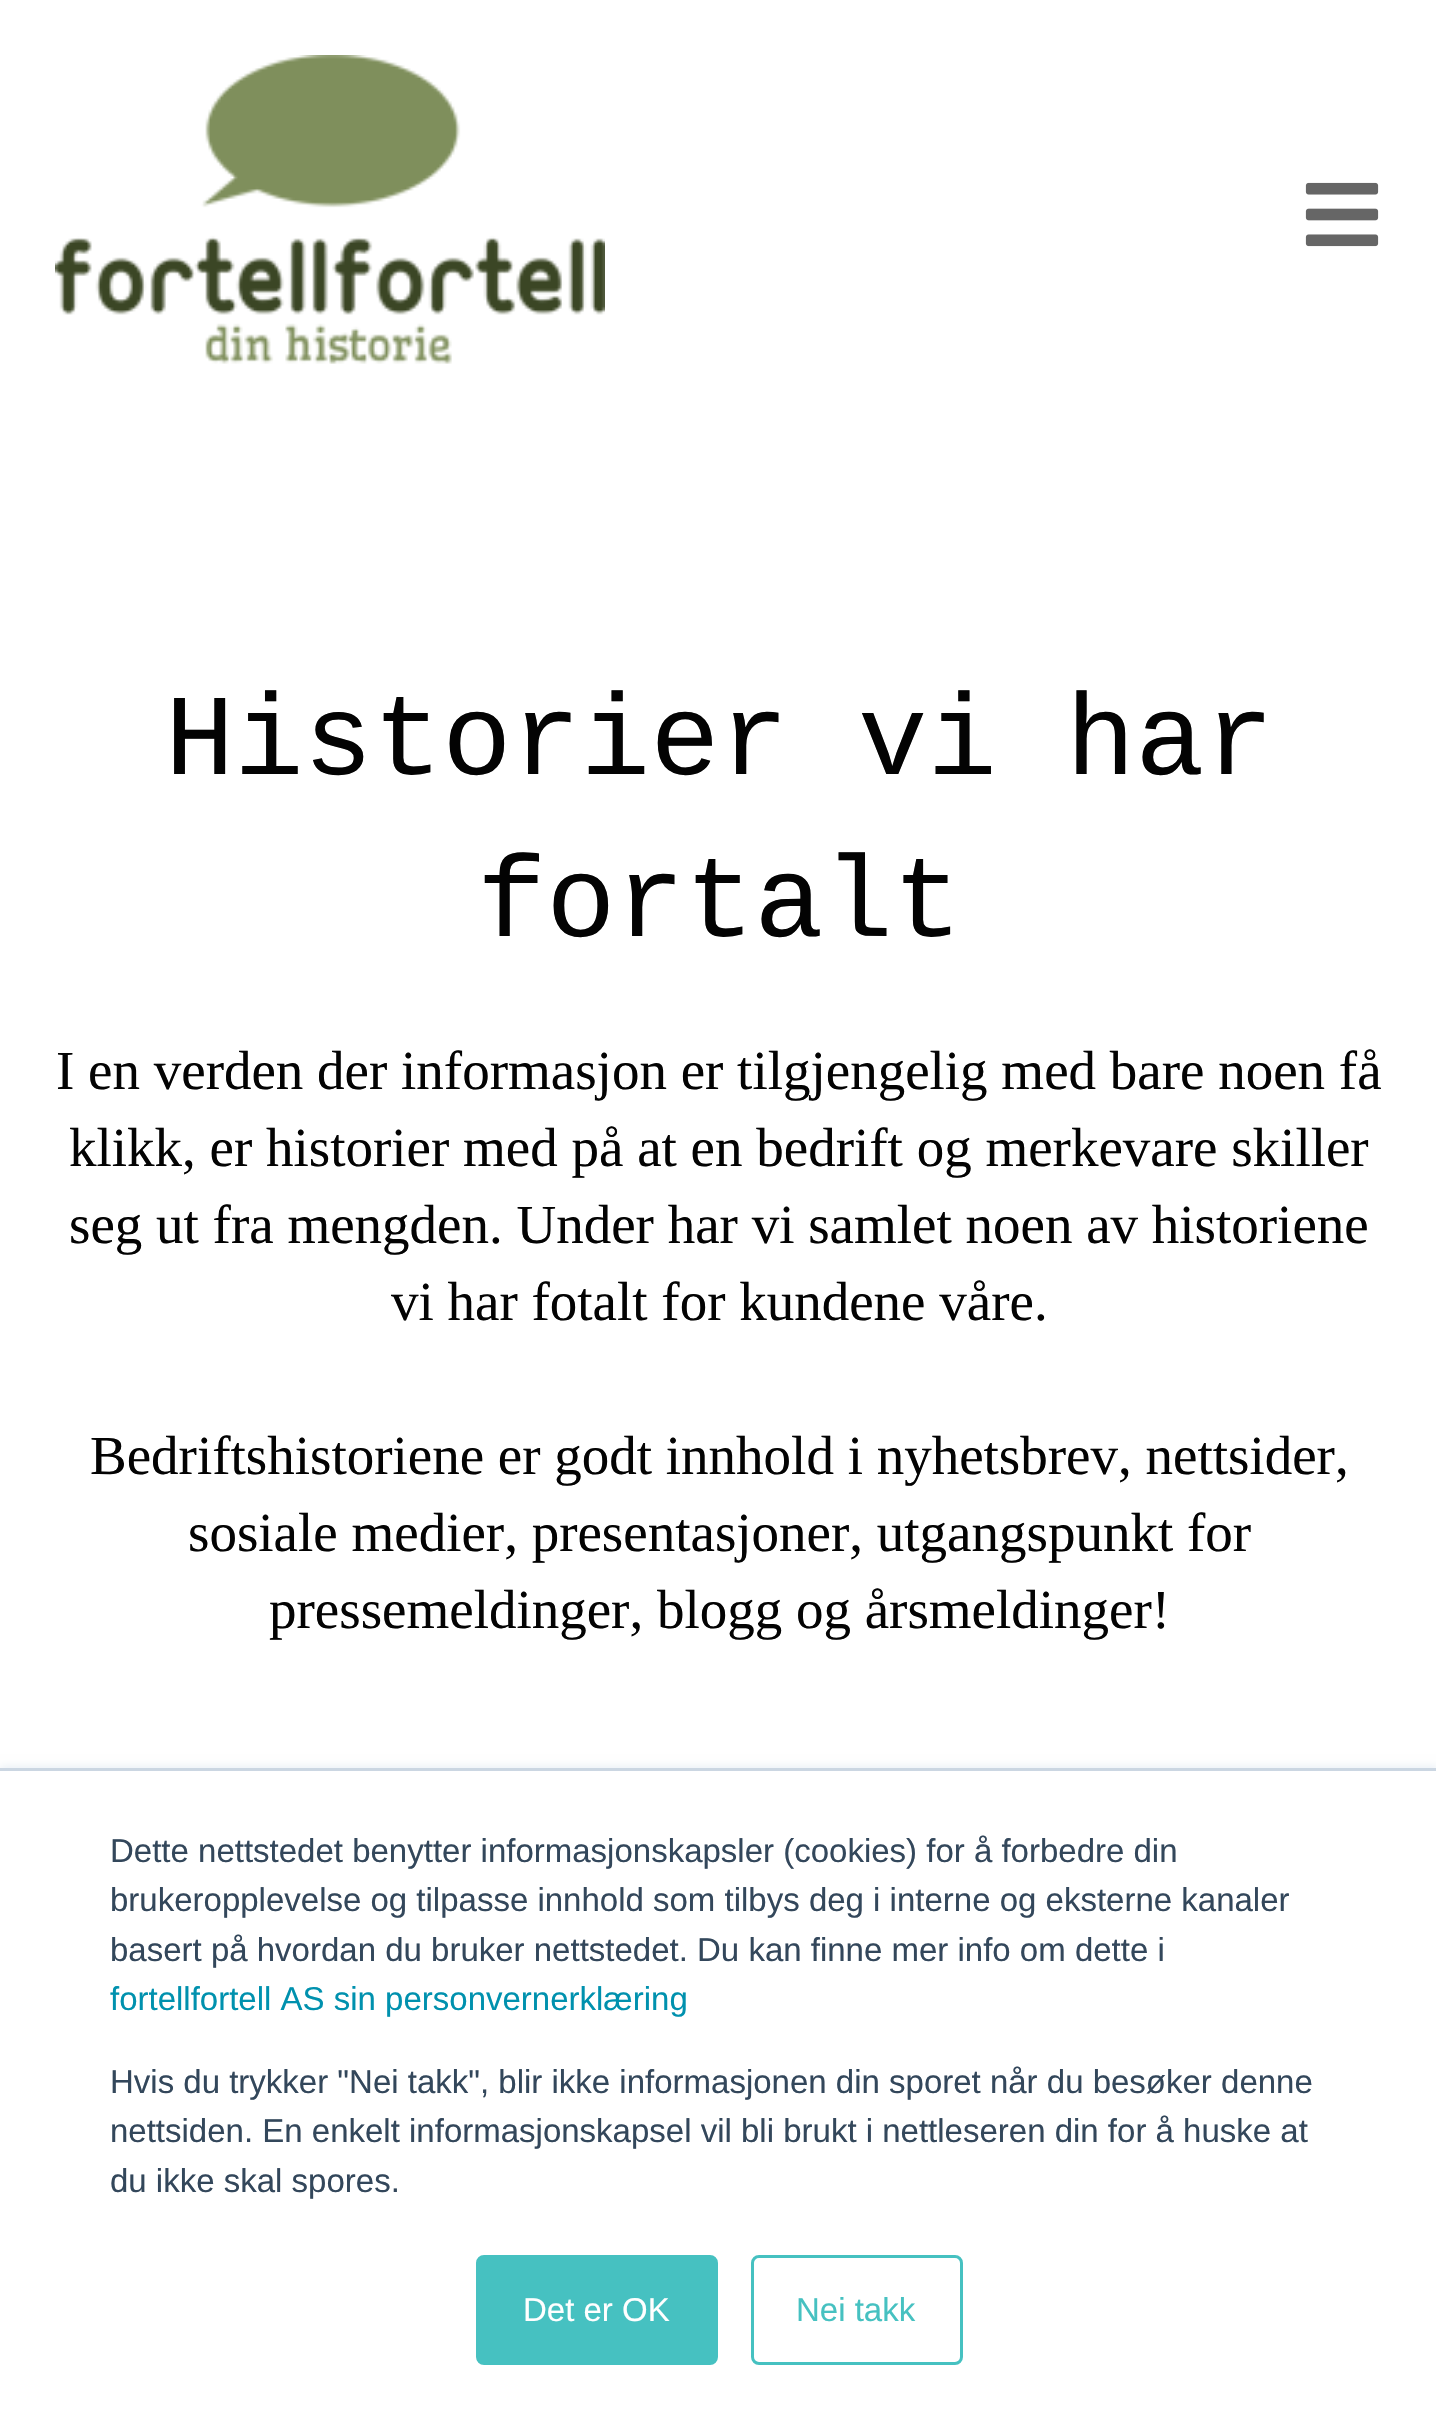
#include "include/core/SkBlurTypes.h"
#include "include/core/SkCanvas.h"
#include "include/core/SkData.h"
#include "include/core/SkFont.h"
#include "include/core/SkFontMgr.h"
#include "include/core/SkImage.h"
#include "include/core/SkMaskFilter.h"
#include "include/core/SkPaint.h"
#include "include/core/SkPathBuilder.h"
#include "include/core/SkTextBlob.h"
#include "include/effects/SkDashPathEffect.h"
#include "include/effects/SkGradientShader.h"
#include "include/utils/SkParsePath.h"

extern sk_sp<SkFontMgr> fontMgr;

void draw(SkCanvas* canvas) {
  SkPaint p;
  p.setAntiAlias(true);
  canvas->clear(SK_ColorWHITE);
  canvas->drawImageRect(SkImages::DeferredFromEncodedData(SkData::MakeFromFileName("images/1.png")), SkRect::MakeLTRB(55, 55, 605, 364), SkSamplingOptions());
  canvas->drawImageRect(SkImages::DeferredFromEncodedData(SkData::MakeFromFileName("images/2.png")), SkRect::MakeLTRB(1305, 182, 1379, 247), SkSamplingOptions());
  p.setColor(SkColorSetRGB(234, 240, 246));
  p.setMaskFilter(SkMaskFilter::MakeBlur(kNormal_SkBlurStyle, 4));
  canvas->drawRect(SkRect::MakeLTRB(0, 1766, 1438, 2434), p);
  p.setMaskFilter(nullptr);
  p.setColor(SK_ColorWHITE);
  canvas->drawRect(SkRect::MakeLTRB(0, 1771, 1436, 2435), p);
  p.setColor(SkColorSetRGB(203, 214, 226));
  canvas->drawRect(SkRect::MakeLTRB(0, 1768, 1436, 1771), p);
  p.setColor(SkColorSetRGB(70, 193, 193));
  canvas->drawRoundRect(SkRect::MakeLTRB(477.5f, 2256.5f, 716.5f, 2363.5f), 6.5f, 6.5f, p);
  p.setStyle(SkPaint::kStroke_Style);
  p.setStrokeWidth(3);
  canvas->drawRoundRect(SkRect::MakeLTRB(477.5f, 2256.5f, 716.5f, 2363.5f), 6.5f, 6.5f, p);
  canvas->drawRoundRect(SkRect::MakeLTRB(752.5f, 2256.5f, 961.5f, 2363.5f), 6.5f, 6.5f, p);
  SkFont font1(fontMgr->matchFamilyStyle("Liberation Mono", SkFontStyle::Normal()), 115.5f);
  font1.setSubpixel(true);
  p.setStyle(SkPaint::kFill_Style);
  p.setColor(SkColorSetRGB(3, 3, 3));
  canvas->drawString("Historier vi har", 165, 774, font1, p);
  canvas->drawString("fortalt", 477, 936, font1, p);
  SkFont font2(fontMgr->matchFamilyStyle("Liberation Serif", SkFontStyle::Normal()), 55);
  font2.setSubpixel(true);
  canvas->drawString("I en verden der informasjon er tilgjengelig med bare noen få", 56, 1089, font2, p);
  canvas->drawString("klikk, er historier med på at en bedrift og merkevare skiller", 69, 1166, font2, p);
  canvas->drawString("seg ut fra mengden. Under har vi samlet noen av historiene", 69, 1243, font2, p);
  canvas->drawString("vi har fotalt for kundene våre.", 391, 1320, font2, p);
  canvas->drawString("Bedriftshistoriene er godt innhold i nyhetsbrev, nettsider,", 90, 1474, font2, p);
  canvas->drawString("sosiale medier, presentasjoner, utgangspunkt for", 188, 1551, font2, p);
  canvas->drawString("pressemeldinger, blogg og årsmeldinger!", 269, 1628, font2, p);
  SkFont font3(fontMgr->matchFamilyStyle("Liberation Sans", SkFontStyle::Normal()), 33);
  font3.setSubpixel(true);
  p.setColor(SkColorSetRGB(51, 71, 91));
  canvas->drawString("Dette nettstedet benytter informasjonskapsler (cookies) for å forbedre din", 110, 1862, font3, p);
  canvas->drawString("brukeropplevelse og tilpasse innhold som tilbys deg i interne og eksterne kanaler", 110, 1911, font3, p);
  canvas->drawString("basert på hvordan du bruker nettstedet. Du kan finne mer info om dette i", 110, 1961, font3, p);
  p.setColor(SkColorSetRGB(0, 145, 174));
  canvas->drawString("fortellfortell AS sin personvernerklæring", 110, 2010, font3, p);
  p.setColor(SkColorSetRGB(51, 71, 91));
  canvas->drawString("Hvis du trykker \"Nei takk\", blir ikke informasjonen din sporet når du besøker denne", 110, 2093, font3, p);
  canvas->drawString("nettsiden. En enkelt informasjonskapsel vil bli brukt i nettleseren din for å huske at", 110, 2142, font3, p);
  canvas->drawString("du ikke skal spores.", 110, 2192, font3, p);
  p.setColor(SK_ColorWHITE);
  canvas->drawString("Det er OK", 523, 2321, font3, p);
  p.setColor(SkColorSetRGB(70, 193, 193));
  canvas->drawString("Nei takk", 796, 2321, font3, p);
}
